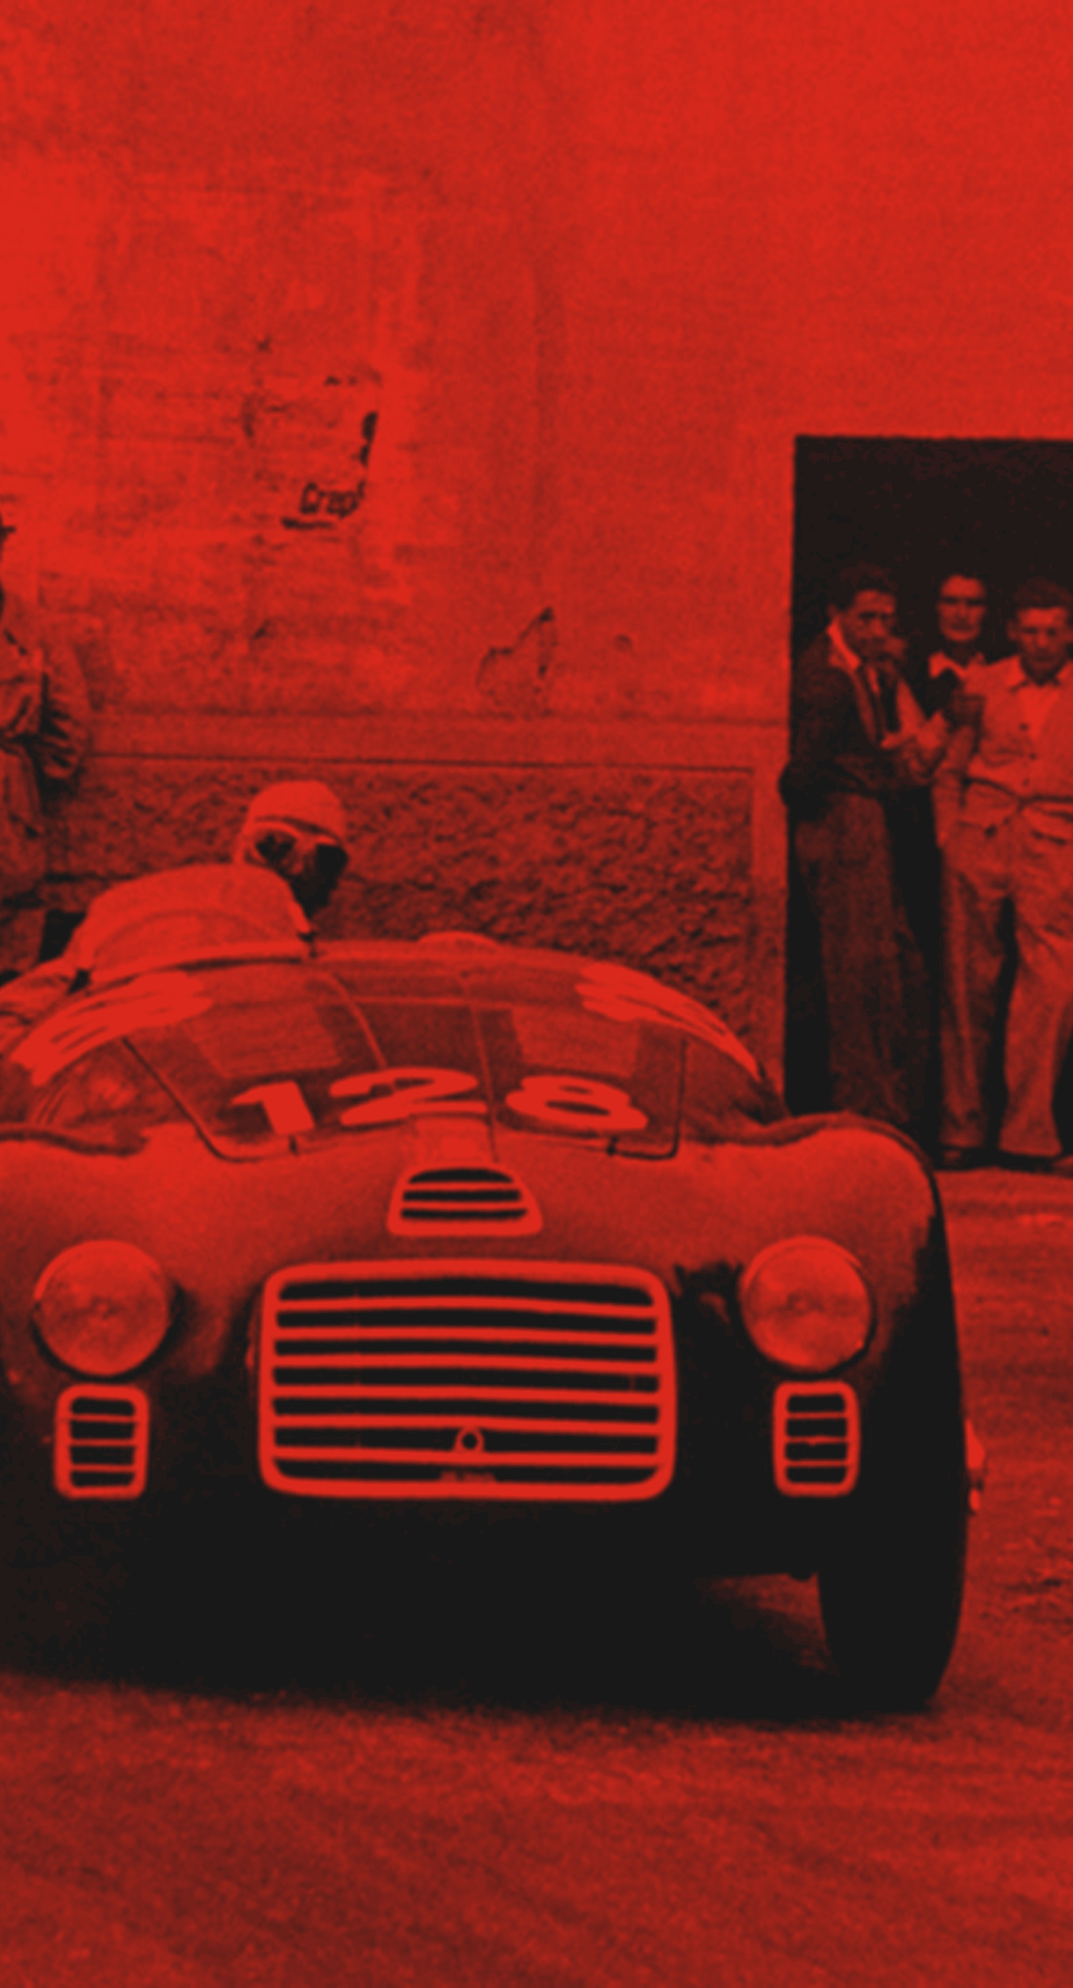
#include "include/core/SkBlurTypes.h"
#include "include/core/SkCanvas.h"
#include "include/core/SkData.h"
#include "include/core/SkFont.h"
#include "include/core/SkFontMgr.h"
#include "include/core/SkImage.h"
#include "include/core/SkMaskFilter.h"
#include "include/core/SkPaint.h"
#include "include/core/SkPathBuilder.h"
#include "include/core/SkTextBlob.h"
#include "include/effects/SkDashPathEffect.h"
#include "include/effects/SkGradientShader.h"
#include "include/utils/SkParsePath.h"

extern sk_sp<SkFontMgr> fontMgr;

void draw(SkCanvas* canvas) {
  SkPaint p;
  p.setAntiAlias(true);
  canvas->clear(SK_ColorWHITE);
  canvas->drawImageRect(SkImages::DeferredFromEncodedData(SkData::MakeFromFileName("images/1.png")), SkRect::MakeLTRB(0, 0, 1073, 1988), SkSamplingOptions());
}
